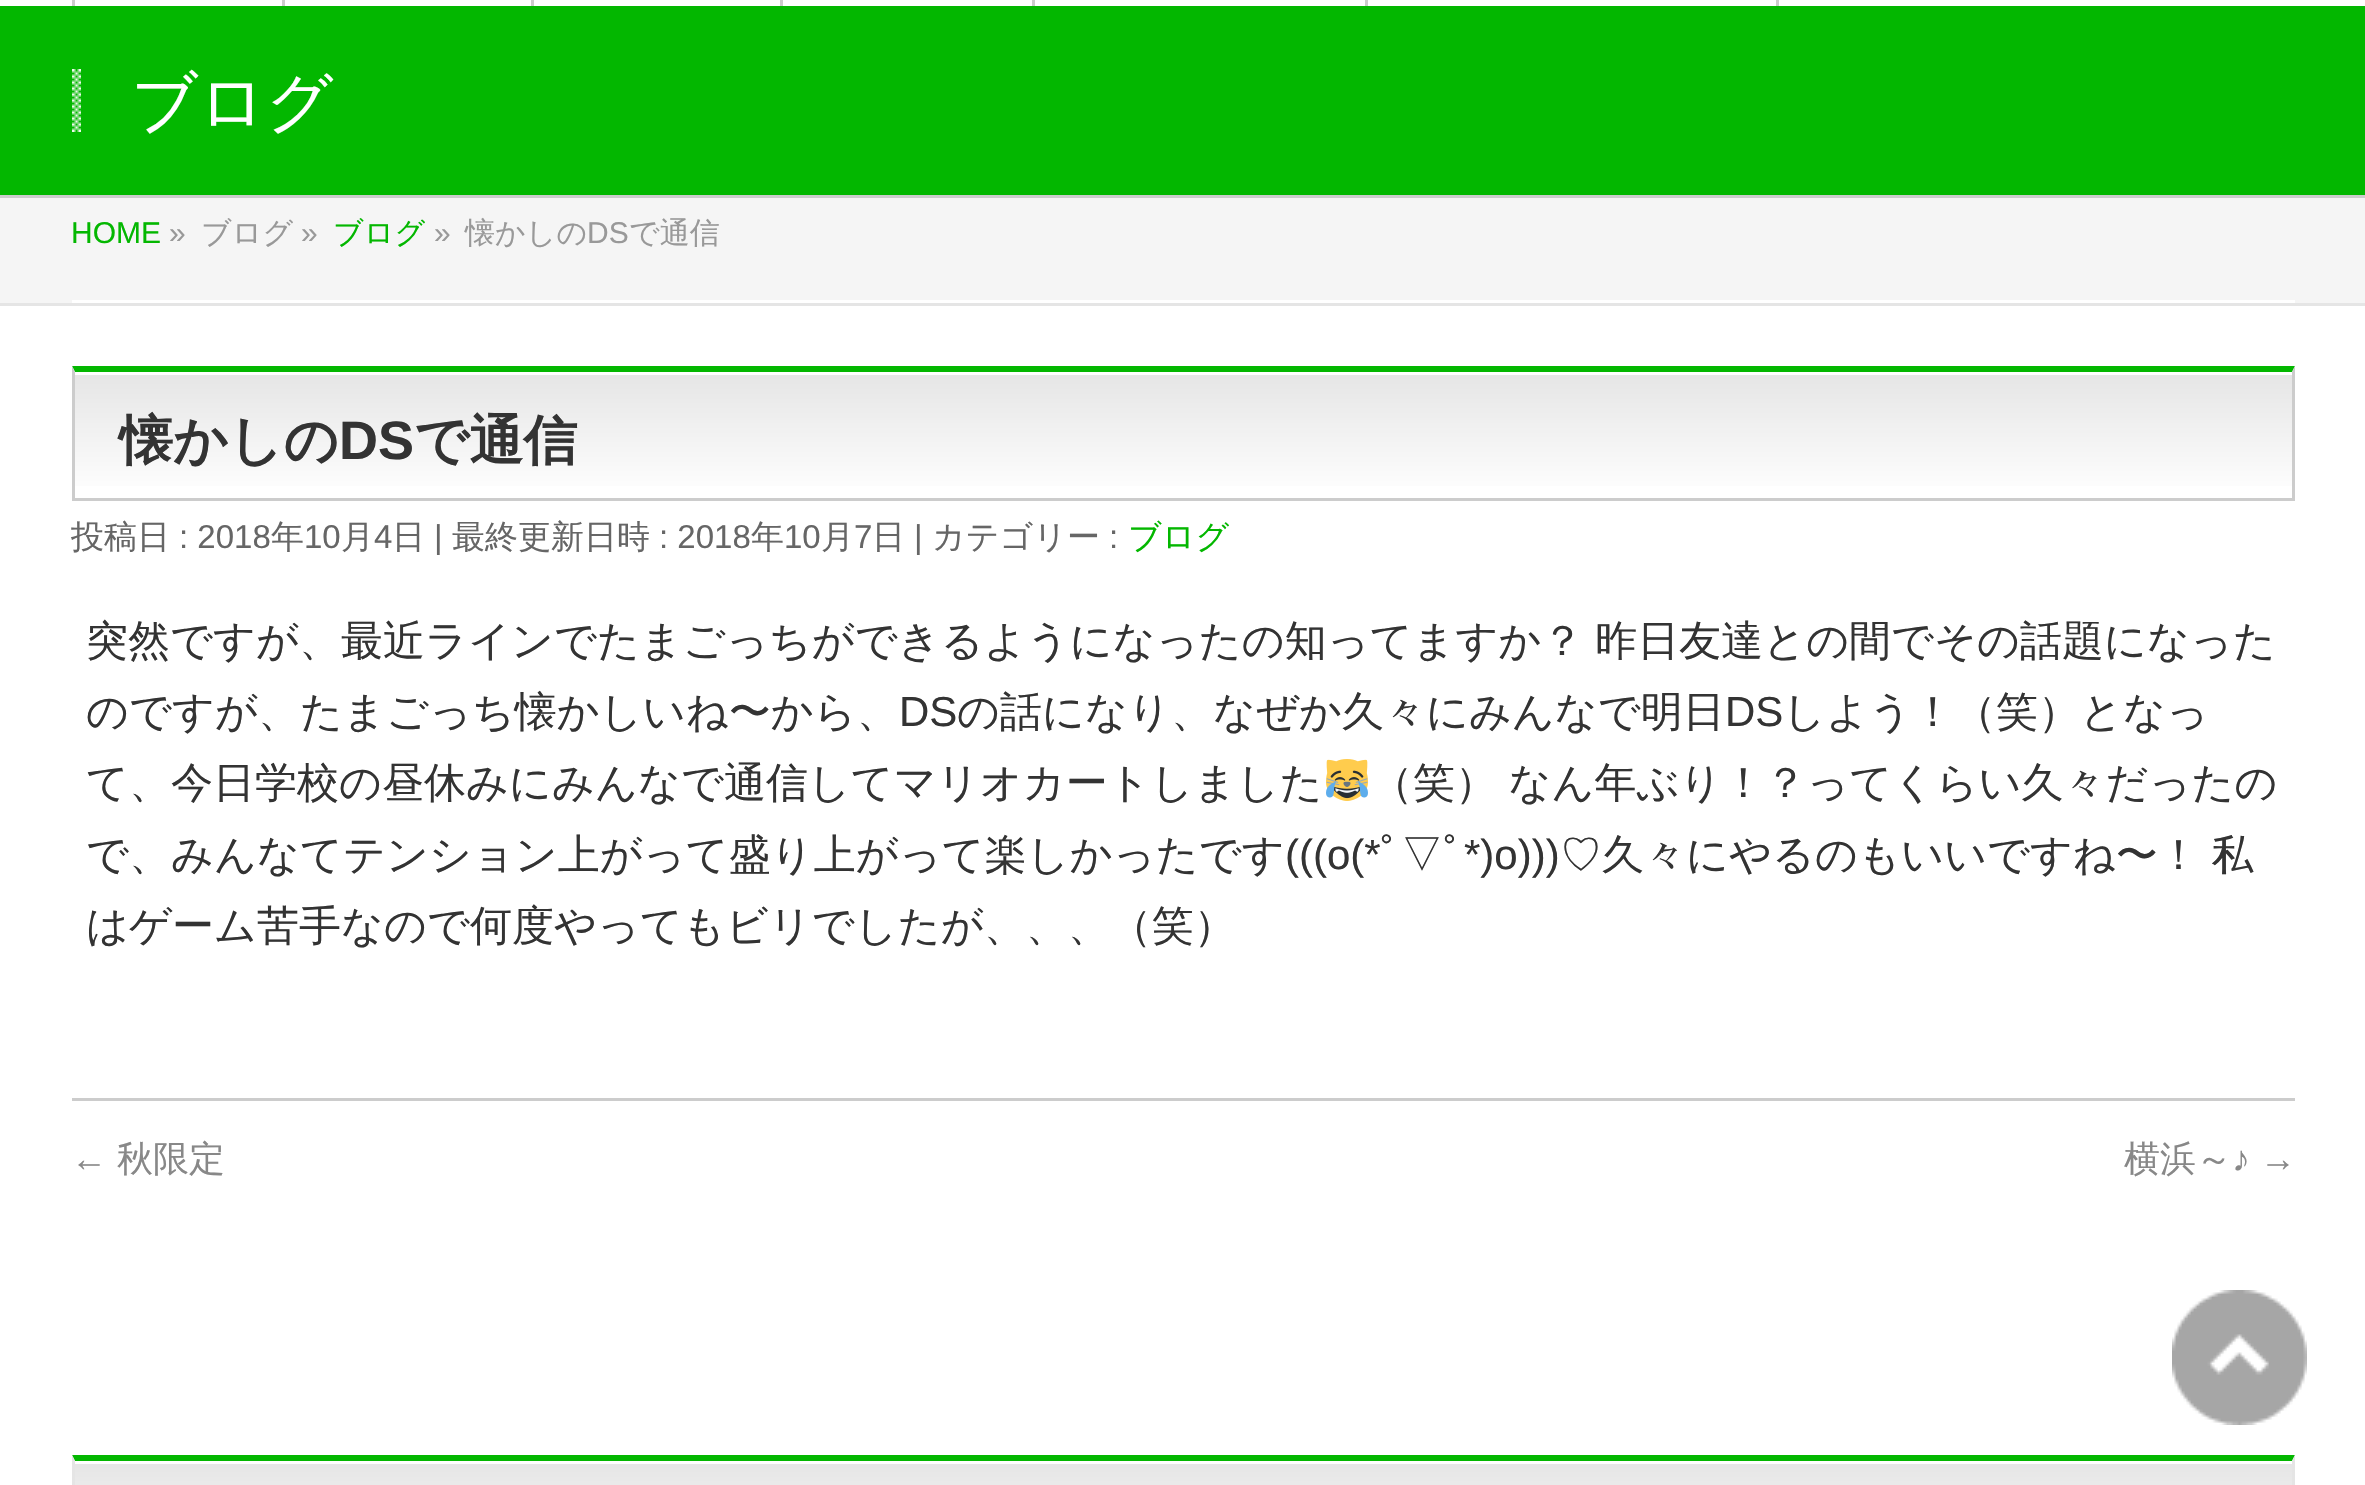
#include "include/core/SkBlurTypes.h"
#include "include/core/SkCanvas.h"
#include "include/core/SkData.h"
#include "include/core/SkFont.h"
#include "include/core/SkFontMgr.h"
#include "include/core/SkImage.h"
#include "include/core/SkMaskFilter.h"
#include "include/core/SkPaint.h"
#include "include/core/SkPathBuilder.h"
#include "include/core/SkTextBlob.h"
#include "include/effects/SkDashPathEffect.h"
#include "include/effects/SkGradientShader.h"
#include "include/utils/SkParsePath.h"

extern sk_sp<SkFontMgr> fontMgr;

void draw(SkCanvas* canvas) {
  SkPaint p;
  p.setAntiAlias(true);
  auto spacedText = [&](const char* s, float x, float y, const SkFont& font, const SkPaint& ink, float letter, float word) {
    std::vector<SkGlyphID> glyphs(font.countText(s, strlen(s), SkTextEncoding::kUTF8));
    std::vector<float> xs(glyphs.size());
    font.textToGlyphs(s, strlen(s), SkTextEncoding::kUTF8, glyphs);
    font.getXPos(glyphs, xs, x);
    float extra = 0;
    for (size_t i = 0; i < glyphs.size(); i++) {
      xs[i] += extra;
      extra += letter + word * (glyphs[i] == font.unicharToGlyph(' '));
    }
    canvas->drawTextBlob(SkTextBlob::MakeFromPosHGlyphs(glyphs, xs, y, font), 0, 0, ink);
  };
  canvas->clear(SK_ColorWHITE);
  p.setColor(SkColorSetRGB(204, 204, 204));
  canvas->drawRect(SkRect::MakeLTRB(72, 0, 75, 6), p);
  canvas->drawRect(SkRect::MakeLTRB(282, 0, 285, 6), p);
  canvas->drawRect(SkRect::MakeLTRB(531, 0, 534, 6), p);
  canvas->drawRect(SkRect::MakeLTRB(780, 0, 783, 6), p);
  canvas->drawRect(SkRect::MakeLTRB(1032, 0, 1035, 6), p);
  canvas->drawRect(SkRect::MakeLTRB(1365, 0, 1368, 6), p);
  canvas->drawRect(SkRect::MakeLTRB(1776, 0, 1779, 6), p);
  p.setColor(SkColorSetRGB(3, 183, 0));
  canvas->drawRect(SkRect::MakeLTRB(0, 6, 2365, 195), p);
  p.setColor(SkColorSetRGB(204, 204, 204));
  canvas->drawRect(SkRect::MakeLTRB(0, 195, 2365, 198), p);
  canvas->drawImageRect(SkImages::DeferredFromEncodedData(SkData::MakeFromFileName("images/1.png")), SkRect::MakeLTRB(72, 69, 81, 132), SkSamplingOptions());
  p.setColor(SkColorSetRGB(245, 245, 245));
  canvas->drawRect(SkRect::MakeLTRB(0, 198, 2365, 303), p);
  p.setColor(SkColorSetRGB(229, 229, 229));
  canvas->drawRect(SkRect::MakeLTRB(0, 303, 2365, 306), p);
  p.setColor(SK_ColorWHITE);
  canvas->drawRect(SkRect::MakeLTRB(72, 300, 2295, 303), p);
  {
    const SkColor colors[] = {SkColorSetRGB(229, 229, 229), SK_ColorWHITE};
    const float stops[] = {0, 1};
    const SkPoint ends[] = {{75, 372}, {75, 498}};
    p.setShader(SkGradientShader::MakeLinear(ends, colors, stops, 2, SkTileMode::kClamp));
    p.setAlpha(255);
  }
  canvas->drawRect(SkRect::MakeLTRB(75, 375, 2292, 486), p);
  p.setShader(nullptr);
  p.setColor(SkColorSetRGB(3, 183, 0));
  canvas->drawPath(SkPathBuilder().moveTo(72, 366).lineTo(2295, 366).lineTo(2292, 372).lineTo(75, 372).close().detach(), p);
  p.setColor(SkColorSetRGB(204, 204, 204));
  canvas->drawPath(SkPathBuilder().moveTo(2295, 366).lineTo(2295, 501).lineTo(2292, 498).lineTo(2292, 372).close().detach(), p);
  canvas->drawRect(SkRect::MakeLTRB(72, 498, 2295, 501), p);
  canvas->drawPath(SkPathBuilder().moveTo(72, 501).lineTo(72, 366).lineTo(75, 372).lineTo(75, 498).close().detach(), p);
  canvas->drawImageRect(SkImages::DeferredFromEncodedData(SkData::MakeFromFileName("images/2.png")), SkRect::MakeLTRB(1326, 759, 1368, 801), SkSamplingOptions());
  canvas->drawRect(SkRect::MakeLTRB(72, 1098, 2295, 1101), p);
  {
    const SkColor colors[] = {SkColorSetRGB(229, 229, 229), SK_ColorWHITE};
    const float stops[] = {0, 1};
    const SkPoint ends[] = {{75, 1461}, {75, 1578}};
    p.setShader(SkGradientShader::MakeLinear(ends, colors, stops, 2, SkTileMode::kClamp));
    p.setAlpha(255);
  }
  canvas->drawRect(SkRect::MakeLTRB(75, 1464, 2292, 1485), p);
  p.setShader(nullptr);
  p.setColor(SkColorSetRGB(3, 183, 0));
  canvas->drawPath(SkPathBuilder().moveTo(72, 1455).lineTo(2295, 1455).lineTo(2292, 1461).lineTo(75, 1461).close().detach(), p);
  p.setColor(SkColorSetRGB(229, 229, 229));
  canvas->drawPath(SkPathBuilder().moveTo(2295, 1455).lineTo(2295, 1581).lineTo(2292, 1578).lineTo(2292, 1461).close().detach(), p);
  canvas->drawPath(SkPathBuilder().moveTo(72, 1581).lineTo(72, 1455).lineTo(75, 1461).lineTo(75, 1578).close().detach(), p);
  canvas->drawImageRect(SkImages::DeferredFromEncodedData(SkData::MakeFromFileName("images/3.png")), SkRect::MakeLTRB(2172, 1290, 2307, 1425), SkSamplingOptions());
  SkFont font1(fontMgr->matchFamilyStyle("WenQuanYi Zen Hei", SkFontStyle(500, SkFontStyle::kNormal_Width, SkFontStyle::kUpright_Slant)), 66);
  font1.setSubpixel(true);
  p.setColor(SK_ColorWHITE);
  canvas->drawString("ブログ", 131, 125, font1, p);
  SkFont font2(fontMgr->matchFamilyStyle("Liberation Sans", SkFontStyle::Normal()), 30);
  font2.setSubpixel(true);
  p.setColor(SkColorSetRGB(3, 183, 0));
  canvas->drawString("HOME", 71, 243, font2, p);
  p.setColor(SkColorSetRGB(153, 153, 153));
  canvas->drawString("»", 169, 243, font2, p);
  SkFont font3(fontMgr->matchFamilyStyle("WenQuanYi Zen Hei", SkFontStyle(500, SkFontStyle::kNormal_Width, SkFontStyle::kUpright_Slant)), 30);
  font3.setSubpixel(true);
  canvas->drawString("ブログ", 201, 243, font3, p);
  canvas->drawString("»", 301, 243, font2, p);
  p.setColor(SkColorSetRGB(3, 183, 0));
  canvas->drawString("ブログ", 333, 243, font3, p);
  p.setColor(SkColorSetRGB(153, 153, 153));
  canvas->drawString("»", 434, 243, font2, p);
  canvas->drawString("懐かしの", 465, 243, font3, p);
  canvas->drawString("DS", 587, 243, font2, p);
  canvas->drawString("で通信", 629, 243, font3, p);
  SkFont font4(fontMgr->matchFamilyStyle("WenQuanYi Zen Hei", SkFontStyle::Bold()), 54);
  font4.setSubpixel(true);
  p.setColor(SkColorSetRGB(51, 51, 51));
  canvas->drawString("懐かしの", 119, 459, font4, p);
  SkFont font5(fontMgr->matchFamilyStyle("Liberation Sans", SkFontStyle::Bold()), 54);
  font5.setSubpixel(true);
  canvas->drawString("DS", 339, 459, font5, p);
  canvas->drawString("で通信", 414, 459, font4, p);
  SkFont font6(fontMgr->matchFamilyStyle("WenQuanYi Zen Hei", SkFontStyle(500, SkFontStyle::kNormal_Width, SkFontStyle::kUpright_Slant)), 33);
  font6.setSubpixel(true);
  p.setColor(SkColorSetRGB(102, 102, 102));
  canvas->drawString("投稿日", 71, 548, font6, p);
  SkFont font7(fontMgr->matchFamilyStyle("Liberation Sans", SkFontStyle::Normal()), 33);
  font7.setSubpixel(true);
  canvas->drawString(": 2018", 179, 548, font7, p);
  canvas->drawString("年", 271, 548, font6, p);
  canvas->drawString("10", 304, 548, font7, p);
  canvas->drawString("月", 341, 548, font6, p);
  canvas->drawString("4", 374, 548, font7, p);
  canvas->drawString("日", 392, 548, font6, p);
  canvas->drawString("|", 434, 548, font7, p);
  canvas->drawString("最終更新日時", 452, 548, font6, p);
  canvas->drawString(": 2018", 659, 548, font7, p);
  canvas->drawString("年", 751, 548, font6, p);
  canvas->drawString("10", 784, 548, font7, p);
  canvas->drawString("月", 821, 548, font6, p);
  canvas->drawString("7", 854, 548, font7, p);
  canvas->drawString("日", 872, 548, font6, p);
  canvas->drawString("|", 914, 548, font7, p);
  canvas->drawString("カテゴリー", 932, 548, font6, p);
  canvas->drawString(":", 1109, 548, font7, p);
  p.setColor(SkColorSetRGB(3, 183, 0));
  canvas->drawString("ブログ", 1128, 548, font6, p);
  SkFont font8(fontMgr->matchFamilyStyle("WenQuanYi Zen Hei", SkFontStyle(500, SkFontStyle::kNormal_Width, SkFontStyle::kUpright_Slant)), 42);
  font8.setSubpixel(true);
  p.setColor(SkColorSetRGB(51, 51, 51));
  spacedText("突然ですが、最近ラインでたまごっちができるようになったの知ってますか？ 昨日友達との間でその話題になった", 86, 655, font8, p, 0, -1);
  canvas->drawString("のですが、たまごっち懐かしいね〜から、", 86, 726, font8, p);
  SkFont font9(fontMgr->matchFamilyStyle("Liberation Sans", SkFontStyle::Normal()), 42);
  font9.setSubpixel(true);
  canvas->drawString("DS", 899, 726, font9, p);
  canvas->drawString("の話になり、なぜか久々にみんなで明日", 957, 726, font8, p);
  canvas->drawString("DS", 1725, 726, font9, p);
  canvas->drawString("しよう！（笑）となっ", 1783, 726, font8, p);
  canvas->drawString("て、今日学校の昼休みにみんなで通信してマリオカートしました", 86, 797, font8, p);
  spacedText("（笑） なん年ぶり！？ってくらい久々だったの", 1371, 797, font8, p, 0, -1);
  canvas->drawString("で、みんなてテンション上がって盛り上がって楽しかったです", 86, 869, font8, p);
  canvas->drawString("(((o(*", 1285, 869, font9, p);
  SkFont font10(fontMgr->matchFamilyStyle("IPAPGothic", SkFontStyle::Normal()), 42);
  font10.setSubpixel(true);
  canvas->drawString("ﾟ", 1380, 869, font10, p);
  canvas->drawString("▽", 1401, 869, font8, p);
  canvas->drawString("ﾟ", 1443, 869, font10, p);
  canvas->drawString("*)o)))", 1464, 869, font9, p);
  spacedText("♡久々にやるのもいいですね〜！ 私", 1560, 869, font8, p, 0, -1);
  canvas->drawString("はゲーム苦手なので何度やってもビリでしたが、、、（笑）", 86, 940, font8, p);
  SkFont font11(fontMgr->matchFamilyStyle("Liberation Sans", SkFontStyle::Normal()), 36);
  font11.setSubpixel(true);
  p.setColor(SkColorSetRGB(136, 136, 136));
  canvas->drawString("←", 71, 1171, font11, p);
  SkFont font12(fontMgr->matchFamilyStyle("WenQuanYi Zen Hei", SkFontStyle(500, SkFontStyle::kNormal_Width, SkFontStyle::kUpright_Slant)), 36);
  font12.setSubpixel(true);
  canvas->drawString("秋限定", 117, 1171, font12, p);
  canvas->drawString("横浜～", 2124, 1171, font12, p);
  canvas->drawString("♪ →", 2232, 1171, font11, p);
}
